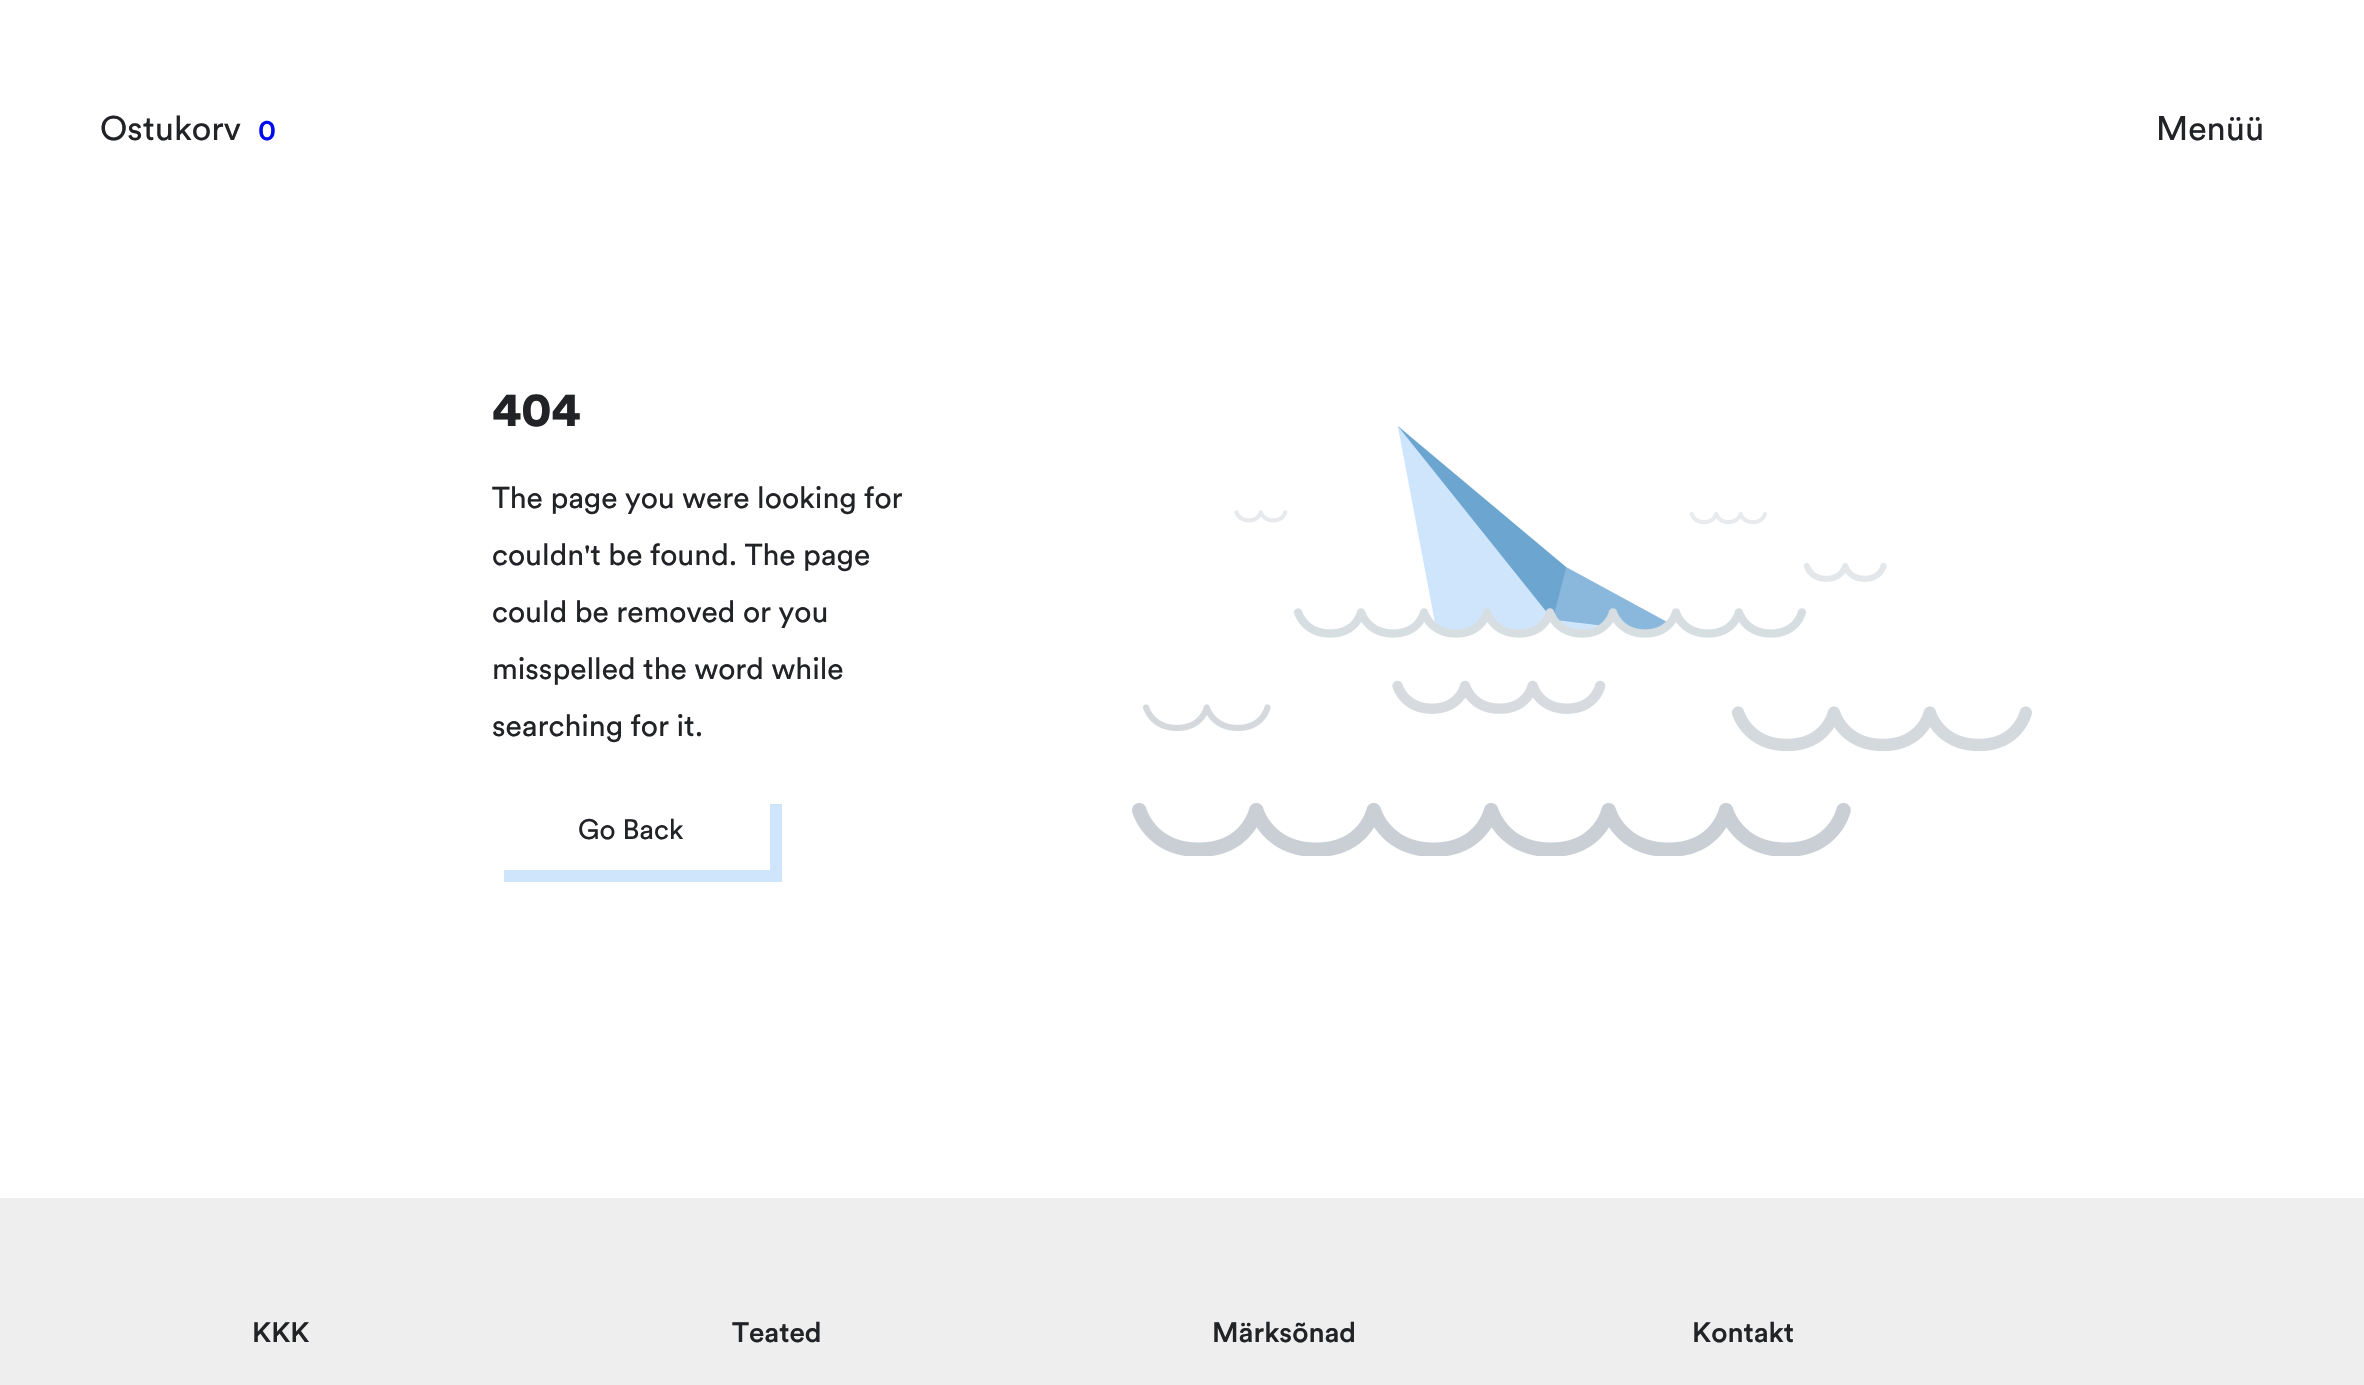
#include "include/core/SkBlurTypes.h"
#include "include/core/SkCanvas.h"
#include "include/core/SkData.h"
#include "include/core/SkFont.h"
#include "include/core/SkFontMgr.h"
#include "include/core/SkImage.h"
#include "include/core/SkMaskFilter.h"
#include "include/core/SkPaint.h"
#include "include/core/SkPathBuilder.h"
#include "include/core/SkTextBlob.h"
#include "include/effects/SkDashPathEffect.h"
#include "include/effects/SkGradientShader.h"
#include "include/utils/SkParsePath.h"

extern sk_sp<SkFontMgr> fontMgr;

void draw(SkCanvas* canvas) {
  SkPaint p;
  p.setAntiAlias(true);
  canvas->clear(SK_ColorWHITE);
  p.setColor(SkColorSetRGB(207, 229, 252));
  canvas->drawRect(SkRect::MakeLTRB(504, 804, 782, 882), p);
  p.setColor(SK_ColorWHITE);
  canvas->drawRect(SkRect::MakeLTRB(504, 804, 770, 870), p);
  canvas->drawImageRect(SkImages::DeferredFromEncodedData(SkData::MakeFromFileName("images/1.png")), SkRect::MakeLTRB(1132, 426, 2032, 856), SkSamplingOptions());
  p.setColor(SkColorSetRGB(237, 238, 237));
  canvas->drawRect(SkRect::MakeLTRB(0, 1198, 2364, 1385), p);
  SkFont font1(fontMgr->matchFamilyStyle("Circular", SkFontStyle::Normal()), 34);
  font1.setSubpixel(true);
  p.setColor(SkColorSetRGB(34, 35, 38));
  canvas->drawString("Ostukorv", 100, 140, font1, p);
  SkFont font2(fontMgr->matchFamilyStyle("Circular", SkFontStyle(500, SkFontStyle::kNormal_Width, SkFontStyle::kUpright_Slant)), 29);
  font2.setSubpixel(true);
  p.setColor(SkColorSetRGB(0, 11, 239));
  canvas->drawString("0", 258, 140, font2, p);
  p.setColor(SkColorSetRGB(34, 35, 38));
  canvas->drawString("Menüü", 2156, 140, font1, p);
  SkFont font3(fontMgr->matchFamilyStyle("Circular", SkFontStyle(900, SkFontStyle::kNormal_Width, SkFontStyle::kUpright_Slant)), 48);
  font3.setSubpixel(true);
  canvas->drawString("404", 492, 426, font3, p);
  SkFont font4(fontMgr->matchFamilyStyle("Circular", SkFontStyle::Normal()), 30);
  font4.setSubpixel(true);
  canvas->drawString("The page you were looking for", 492, 508, font4, p);
  canvas->drawString("couldn't be found. The page", 492, 565, font4, p);
  canvas->drawString("could be removed or you", 492, 622, font4, p);
  canvas->drawString("misspelled the word while", 492, 679, font4, p);
  canvas->drawString("searching for it.", 492, 736, font4, p);
  SkFont font5(fontMgr->matchFamilyStyle("Circular", SkFontStyle::Normal()), 28);
  font5.setSubpixel(true);
  canvas->drawString("Go Back", 578, 839, font5, p);
  SkFont font6(fontMgr->matchFamilyStyle("Circular", SkFontStyle(500, SkFontStyle::kNormal_Width, SkFontStyle::kUpright_Slant)), 28);
  font6.setSubpixel(true);
  canvas->drawString("KKK", 252, 1342, font6, p);
  canvas->drawString("Teated", 732, 1342, font6, p);
  canvas->drawString("Märksõnad", 1212, 1342, font6, p);
  canvas->drawString("Kontakt", 1692, 1342, font6, p);
}
